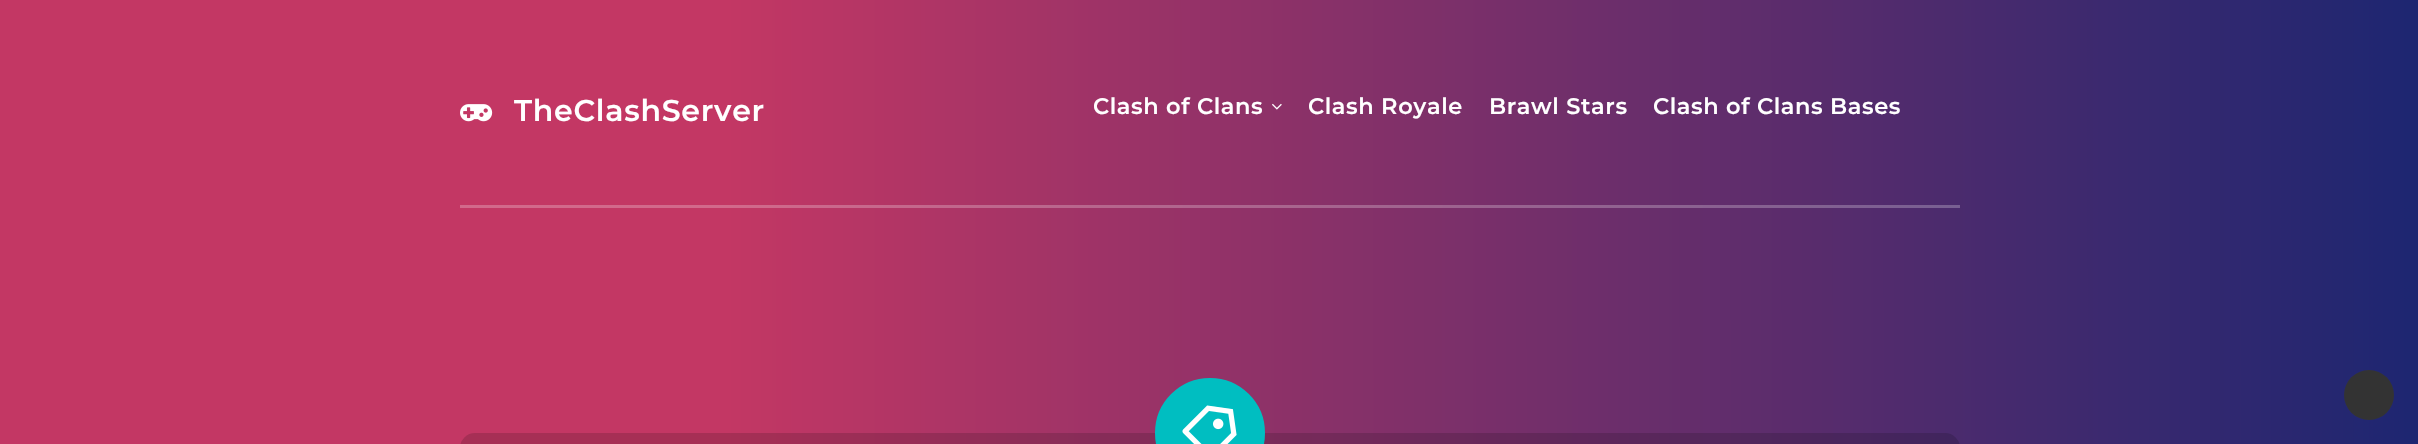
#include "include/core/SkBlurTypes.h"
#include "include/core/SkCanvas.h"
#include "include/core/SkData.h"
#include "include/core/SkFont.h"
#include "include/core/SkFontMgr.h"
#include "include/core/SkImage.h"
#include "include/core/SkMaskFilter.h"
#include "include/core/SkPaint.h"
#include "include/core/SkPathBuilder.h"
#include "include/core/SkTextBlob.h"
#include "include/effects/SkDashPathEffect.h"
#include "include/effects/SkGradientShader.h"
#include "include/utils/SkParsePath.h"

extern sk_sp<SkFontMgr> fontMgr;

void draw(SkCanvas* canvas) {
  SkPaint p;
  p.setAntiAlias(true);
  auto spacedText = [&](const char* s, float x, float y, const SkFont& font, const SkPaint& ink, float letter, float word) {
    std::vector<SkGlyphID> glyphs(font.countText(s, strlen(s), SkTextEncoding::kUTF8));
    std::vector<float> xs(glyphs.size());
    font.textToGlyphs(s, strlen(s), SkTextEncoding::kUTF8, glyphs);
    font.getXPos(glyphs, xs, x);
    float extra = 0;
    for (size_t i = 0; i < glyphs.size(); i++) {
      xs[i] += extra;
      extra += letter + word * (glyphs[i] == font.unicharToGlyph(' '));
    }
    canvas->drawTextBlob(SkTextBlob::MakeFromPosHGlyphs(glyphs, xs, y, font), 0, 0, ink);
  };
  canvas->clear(SK_ColorWHITE);
  {
    const SkColor colors[] = {SkColorSetRGB(195, 55, 100), SkColorSetRGB(29, 38, 113)};
    const float stops[] = {0.3f, 1};
    const SkPoint ends[] = {{0, 223}, {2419, 222}};
    p.setShader(SkGradientShader::MakeLinear(ends, colors, stops, 2, SkTileMode::kClamp));
    p.setAlpha(255);
  }
  canvas->drawRect(SkRect::MakeLTRB(0, 0, 2418, 444), p);
  {
    const SkColor colors[] = {SkColorSetRGB(210, 105, 139), SkColorSetRGB(86, 92, 149)};
    const float stops[] = {0.3f, 1};
    const SkPoint ends[] = {{0, 223}, {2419, 222}};
    p.setShader(SkGradientShader::MakeLinear(ends, colors, stops, 2, SkTileMode::kClamp));
    p.setAlpha(255);
  }
  canvas->drawRect(SkRect::MakeLTRB(460, 205, 1960, 208), p);
  canvas->drawImageRect(SkImages::DeferredFromEncodedData(SkData::MakeFromFileName("images/1.png")), SkRect::MakeLTRB(460, 104, 493, 122), SkSamplingOptions());
  canvas->drawImageRect(SkImages::DeferredFromEncodedData(SkData::MakeFromFileName("images/2.png")), SkRect::MakeLTRB(1272, 103, 1282, 110), SkSamplingOptions());
  p.setShader(nullptr);
  p.setColor(SkColorSetARGB(38, 0, 0, 0));
  canvas->drawRoundRect(SkRect::MakeLTRB(460, 433, 1960, 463), 19, 19, p);
  p.setColor(SkColorSetRGB(0, 190, 193));
  canvas->drawCircle(1210, 433, 52.5f, p);
  p.setStyle(SkPaint::kStroke_Style);
  p.setStrokeWidth(5);
  canvas->drawCircle(1210, 433, 52.5f, p);
  canvas->drawImageRect(SkImages::DeferredFromEncodedData(SkData::MakeFromFileName("images/3.png")), SkRect::MakeLTRB(1182, 405, 1237, 444), SkSamplingOptions());
  p.setStyle(SkPaint::kFill_Style);
  p.setColor(SkColorSetRGB(51, 51, 51));
  canvas->drawCircle(2369, 395, 25, p);
  SkFont font1(fontMgr->matchFamilyStyle("Montserrat", SkFontStyle(600, SkFontStyle::kNormal_Width, SkFontStyle::kUpright_Slant)), 30);
  font1.setSubpixel(true);
  p.setColor(SK_ColorWHITE);
  spacedText("TheClashServer", 514, 121, font1, p, 0.75f, 0);
  SkFont font2(fontMgr->matchFamilyStyle("Montserrat", SkFontStyle(600, SkFontStyle::kNormal_Width, SkFontStyle::kUpright_Slant)), 22.5f);
  font2.setSubpixel(true);
  spacedText("Clash of Clans", 1093, 114, font2, p, 0.6f, 0);
  spacedText("Clash Royale", 1308, 114, font2, p, 0.6f, 0);
  spacedText("Brawl Stars", 1489, 114, font2, p, 0.6f, 0);
  spacedText("Clash of Clans Bases", 1653, 114, font2, p, 0.6f, 0);
}
